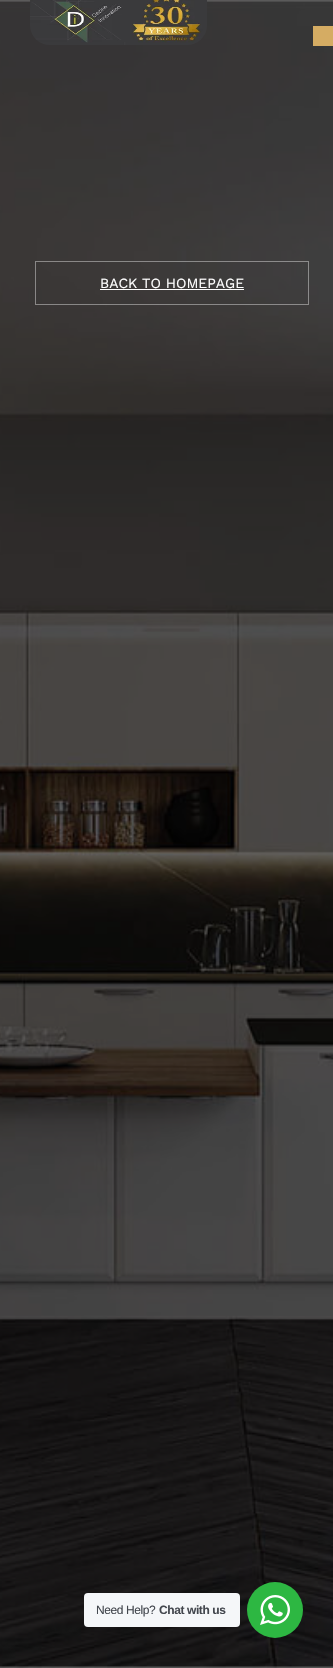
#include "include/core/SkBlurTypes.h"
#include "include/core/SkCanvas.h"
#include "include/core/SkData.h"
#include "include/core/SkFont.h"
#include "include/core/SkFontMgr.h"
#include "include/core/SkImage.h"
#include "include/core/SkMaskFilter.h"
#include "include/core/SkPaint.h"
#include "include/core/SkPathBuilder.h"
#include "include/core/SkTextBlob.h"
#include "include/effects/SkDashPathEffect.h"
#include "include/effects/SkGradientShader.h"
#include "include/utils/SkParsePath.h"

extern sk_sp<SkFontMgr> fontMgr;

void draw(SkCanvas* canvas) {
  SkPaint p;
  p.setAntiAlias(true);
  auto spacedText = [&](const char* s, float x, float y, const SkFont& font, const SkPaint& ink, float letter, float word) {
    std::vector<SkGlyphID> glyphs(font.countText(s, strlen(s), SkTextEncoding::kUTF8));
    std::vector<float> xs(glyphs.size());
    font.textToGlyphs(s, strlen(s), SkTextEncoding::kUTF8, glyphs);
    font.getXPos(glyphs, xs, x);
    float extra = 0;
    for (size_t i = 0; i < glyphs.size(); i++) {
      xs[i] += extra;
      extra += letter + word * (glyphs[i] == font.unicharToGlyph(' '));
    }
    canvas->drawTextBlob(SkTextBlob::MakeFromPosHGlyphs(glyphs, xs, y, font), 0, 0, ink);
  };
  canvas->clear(SK_ColorWHITE);
  canvas->drawImageRect(SkImages::DeferredFromEncodedData(SkData::MakeFromFileName("images/2.png")), SkRect::MakeLTRB(0, 0, 333, 1668), SkSamplingOptions());
  canvas->drawImageRect(SkImages::DeferredFromEncodedData(SkData::MakeFromFileName("images/1.png")), SkRect::MakeLTRB(30, 0, 207, 45), SkSamplingOptions());
  p.setColor(SkColorSetRGB(213, 172, 99));
  canvas->drawRect(SkRect::MakeLTRB(313, 26, 333, 46), p);
  p.setColor(SK_ColorWHITE);
  canvas->drawRect(SkRect::MakeLTRB(100, 289, 244, 290), p);
  p.setStyle(SkPaint::kStroke_Style);
  p.setStrokeWidth(1);
  p.setColor(SkColorSetARGB(102, 255, 255, 255));
  canvas->drawRect(SkRect::MakeLTRB(35.5f, 261.5f, 308.5f, 304.5f), p);
  p.setStyle(SkPaint::kFill_Style);
  p.setColor(SkColorSetRGB(245, 247, 249));
  canvas->drawRoundRect(SkRect::MakeLTRB(84, 1593, 240, 1627), 4, 4, p);
  p.setColor(SkColorSetRGB(45, 183, 66));
  canvas->drawCircle(275, 1610, 28, p);
  canvas->drawImageRect(SkImages::DeferredFromEncodedData(SkData::MakeFromFileName("images/3.png")), SkRect::MakeLTRB(260, 1595, 290, 1625), SkSamplingOptions());
  SkFont font1(fontMgr->matchFamilyStyle("Work Sans", SkFontStyle::Normal()), 14);
  font1.setSubpixel(true);
  p.setColor(SK_ColorWHITE);
  canvas->drawString("BACK TO HOMEPAGE", 100, 288, font1, p);
  SkFont font2(fontMgr->matchFamilyStyle("Liberation Sans", SkFontStyle::Normal()), 12);
  font2.setSubpixel(true);
  p.setColor(SkColorSetRGB(67, 71, 78));
  spacedText("Need Help?", 96, 1614, font2, p, -0.4f, 0);
  SkFont font3(fontMgr->matchFamilyStyle("Liberation Sans", SkFontStyle::Bold()), 12);
  font3.setSubpixel(true);
  spacedText("Chat with us", 159, 1614, font3, p, -0.4f, 0);
}
